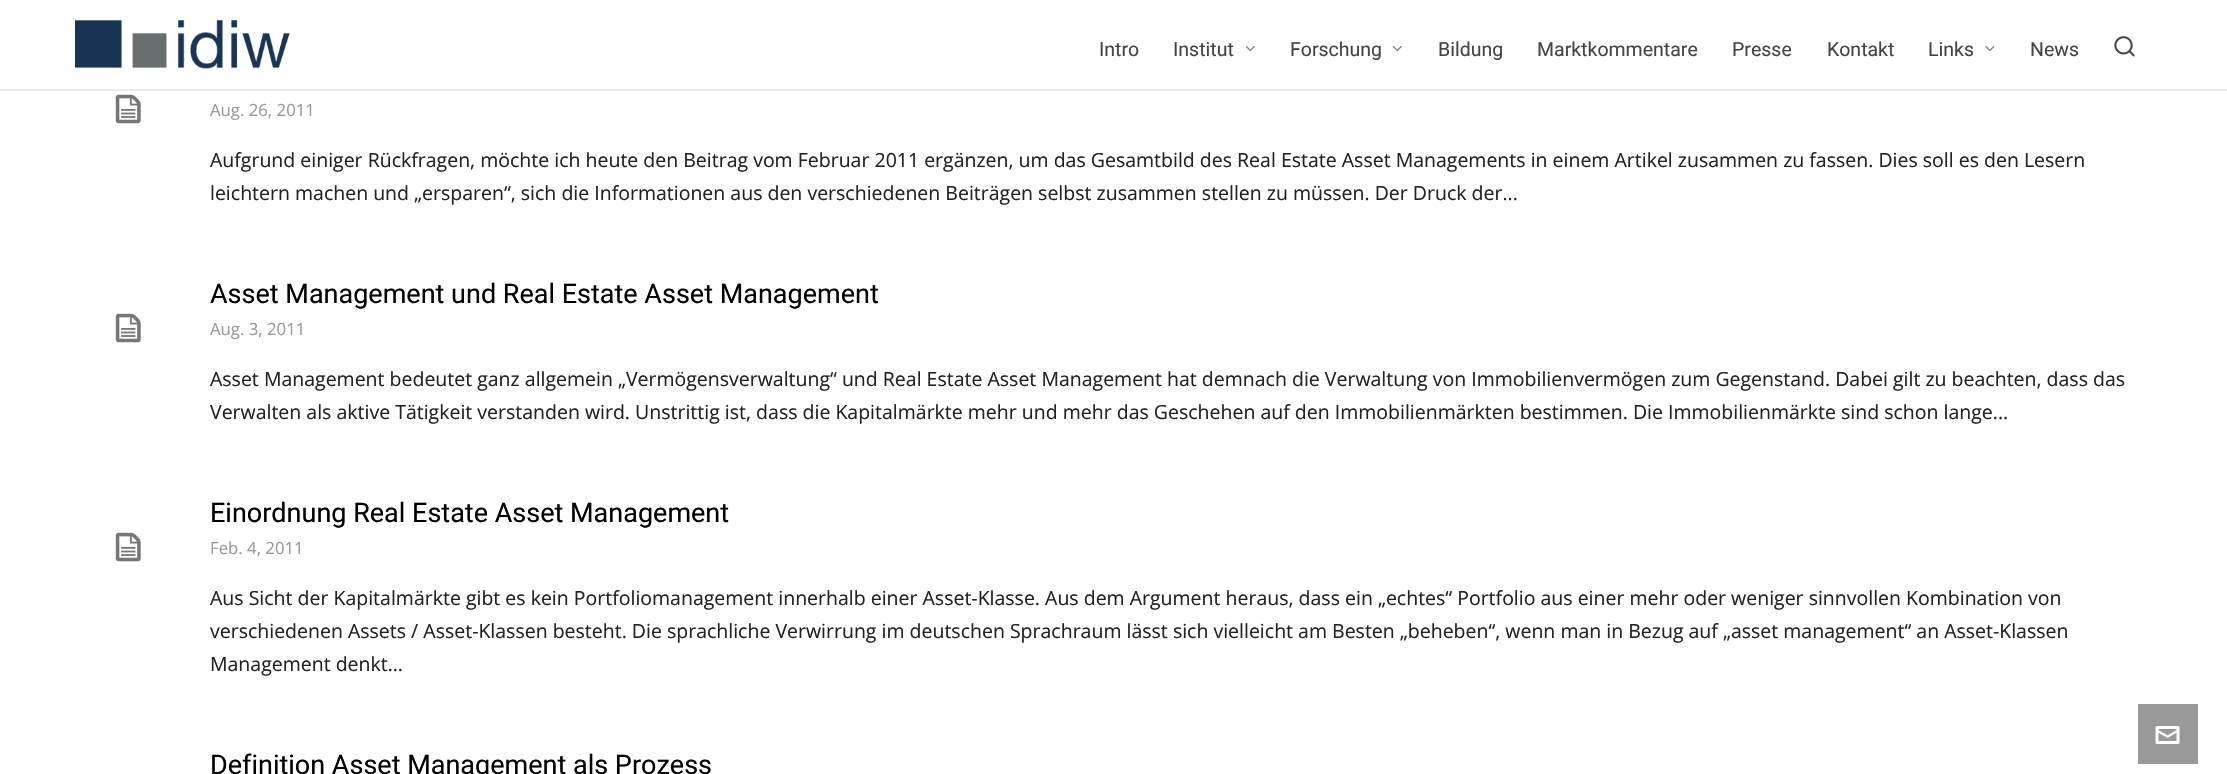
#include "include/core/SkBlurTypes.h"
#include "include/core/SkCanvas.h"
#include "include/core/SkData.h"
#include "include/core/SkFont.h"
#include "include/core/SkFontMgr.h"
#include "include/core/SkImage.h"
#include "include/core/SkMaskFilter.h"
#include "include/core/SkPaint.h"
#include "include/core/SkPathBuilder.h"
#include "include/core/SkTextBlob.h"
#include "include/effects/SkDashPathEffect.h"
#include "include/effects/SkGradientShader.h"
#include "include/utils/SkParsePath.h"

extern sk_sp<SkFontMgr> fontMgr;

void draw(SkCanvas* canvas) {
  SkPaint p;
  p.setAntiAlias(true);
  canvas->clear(SK_ColorWHITE);
  p.setColor(SkColorSetRGB(235, 235, 235));
  canvas->drawRect(SkRect::MakeLTRB(0, 89, 2227, 91), p);
  canvas->drawImageRect(SkImages::DeferredFromEncodedData(SkData::MakeFromFileName("images/1.png")), SkRect::MakeLTRB(75, 20, 290, 69), SkSamplingOptions());
  canvas->drawImageRect(SkImages::DeferredFromEncodedData(SkData::MakeFromFileName("images/2.png")), SkRect::MakeLTRB(1245, 45, 1255, 52), SkSamplingOptions());
  canvas->drawImageRect(SkImages::DeferredFromEncodedData(SkData::MakeFromFileName("images/2.png")), SkRect::MakeLTRB(1392, 45, 1402, 52), SkSamplingOptions());
  canvas->drawImageRect(SkImages::DeferredFromEncodedData(SkData::MakeFromFileName("images/3.png")), SkRect::MakeLTRB(1985, 45, 1995, 52), SkSamplingOptions());
  canvas->drawImageRect(SkImages::DeferredFromEncodedData(SkData::MakeFromFileName("images/4.png")), SkRect::MakeLTRB(2114, 36, 2135, 57), SkSamplingOptions());
  canvas->drawImageRect(SkImages::DeferredFromEncodedData(SkData::MakeFromFileName("images/5.png")), SkRect::MakeLTRB(115, 94, 141, 124), SkSamplingOptions());
  canvas->drawImageRect(SkImages::DeferredFromEncodedData(SkData::MakeFromFileName("images/5.png")), SkRect::MakeLTRB(115, 313, 141, 343), SkSamplingOptions());
  canvas->drawImageRect(SkImages::DeferredFromEncodedData(SkData::MakeFromFileName("images/5.png")), SkRect::MakeLTRB(115, 532, 141, 562), SkSamplingOptions());
  p.setColor(SkColorSetRGB(153, 153, 153));
  canvas->drawRect(SkRect::MakeLTRB(2138, 704, 2198, 764), p);
  canvas->drawImageRect(SkImages::DeferredFromEncodedData(SkData::MakeFromFileName("images/6.png")), SkRect::MakeLTRB(2155, 726, 2180, 744), SkSamplingOptions());
  SkFont font1(fontMgr->matchFamilyStyle("Roboto", SkFontStyle::Normal()), 19.5f);
  font1.setSubpixel(true);
  p.setColor(SkColorSetRGB(68, 68, 68));
  canvas->drawString("Intro", 1099, 56, font1, p);
  canvas->drawString("Institut", 1173, 56, font1, p);
  canvas->drawString("Forschung", 1290, 56, font1, p);
  canvas->drawString("Bildung", 1438, 56, font1, p);
  canvas->drawString("Marktkommentare", 1537, 56, font1, p);
  canvas->drawString("Presse", 1732, 56, font1, p);
  canvas->drawString("Kontakt", 1827, 56, font1, p);
  canvas->drawString("Links", 1928, 56, font1, p);
  canvas->drawString("News", 2030, 56, font1, p);
  SkFont font2(fontMgr->matchFamilyStyle("Open Sans", SkFontStyle::Normal()), 16.75f);
  font2.setSubpixel(true);
  p.setColor(SkColorSetRGB(153, 153, 153));
  canvas->drawString("Aug. 26, 2011", 210, 116, font2, p);
  SkFont font3(fontMgr->matchFamilyStyle("Open Sans", SkFontStyle::Normal()), 19.5f);
  font3.setSubpixel(true);
  p.setColor(SkColorSetRGB(34, 34, 34));
  canvas->drawString("Aufgrund einiger Rückfragen, möchte ich heute den Beitrag vom Februar 2011 ergänzen, um das Gesamtbild des Real Estate Asset Managements in einem Artikel zusammen zu fassen. Dies soll es den Lesern", 210, 167, font3, p);
  canvas->drawString("leichtern machen und „ersparen“, sich die Informationen aus den verschiedenen Beiträgen selbst zusammen stellen zu müssen. Der Druck der...", 210, 200, font3, p);
  SkFont font4(fontMgr->matchFamilyStyle("Roboto", SkFontStyle::Normal()), 27);
  font4.setSubpixel(true);
  p.setColor(SK_ColorBLACK);
  canvas->drawString("Asset Management und Real Estate Asset Management", 210, 303, font4, p);
  p.setColor(SkColorSetRGB(153, 153, 153));
  canvas->drawString("Aug. 3, 2011", 210, 335, font2, p);
  p.setColor(SkColorSetRGB(34, 34, 34));
  canvas->drawString("Asset Management bedeutet ganz allgemein „Vermögensverwaltung“ und Real Estate Asset Management hat demnach die Verwaltung von Immobilienvermögen zum Gegenstand. Dabei gilt zu beachten, dass das", 210, 386, font3, p);
  canvas->drawString("Verwalten als aktive Tätigkeit verstanden wird. Unstrittig ist, dass die Kapitalmärkte mehr und mehr das Geschehen auf den Immobilienmärkten bestimmen. Die Immobilienmärkte sind schon lange...", 210, 419, font3, p);
  p.setColor(SK_ColorBLACK);
  canvas->drawString("Einordnung Real Estate Asset Management", 210, 522, font4, p);
  p.setColor(SkColorSetRGB(153, 153, 153));
  canvas->drawString("Feb. 4, 2011", 210, 554, font2, p);
  p.setColor(SkColorSetRGB(34, 34, 34));
  canvas->drawString("Aus Sicht der Kapitalmärkte gibt es kein Portfoliomanagement innerhalb einer Asset-Klasse. Aus dem Argument heraus, dass ein „echtes“ Portfolio aus einer mehr oder weniger sinnvollen Kombination von", 210, 605, font3, p);
  canvas->drawString("verschiedenen Assets / Asset-Klassen besteht. Die sprachliche Verwirrung im deutschen Sprachraum lässt sich vielleicht am Besten „beheben“, wenn man in Bezug auf „asset management“ an Asset-Klassen", 210, 638, font3, p);
  canvas->drawString("Management denkt…", 210, 671, font3, p);
  p.setColor(SK_ColorBLACK);
  canvas->drawString("Definition Asset Management als Prozess", 210, 774, font4, p);
}
